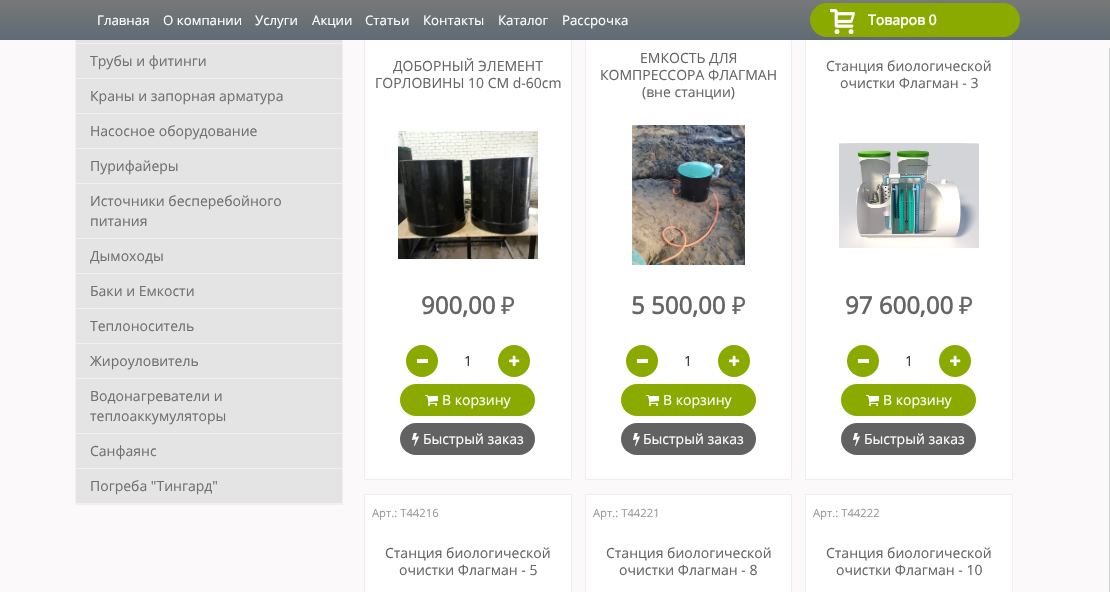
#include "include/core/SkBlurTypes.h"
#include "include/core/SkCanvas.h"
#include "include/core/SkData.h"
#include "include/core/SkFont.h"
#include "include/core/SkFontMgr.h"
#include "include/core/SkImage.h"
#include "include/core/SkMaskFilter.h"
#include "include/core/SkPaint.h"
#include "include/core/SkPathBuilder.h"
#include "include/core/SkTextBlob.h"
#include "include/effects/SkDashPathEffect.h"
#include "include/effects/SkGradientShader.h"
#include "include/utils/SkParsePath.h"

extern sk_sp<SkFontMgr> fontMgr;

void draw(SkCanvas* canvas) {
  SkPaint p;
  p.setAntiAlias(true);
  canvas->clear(SkColorSetRGB(251, 249, 250));
  p.setStyle(SkPaint::kStroke_Style);
  p.setStrokeWidth(1);
  p.setColor(SkColorSetRGB(240, 240, 240));
  canvas->drawRect(SkRect::MakeLTRB(75.5f, -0.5f, 342.5f, 504.5f), p);
  p.setStyle(SkPaint::kFill_Style);
  p.setColor(SK_ColorWHITE);
  canvas->drawRect(SkRect::MakeLTRB(365, 40, 571, 479), p);
  p.setStyle(SkPaint::kStroke_Style);
  p.setColor(SkColorSetRGB(238, 238, 238));
  canvas->drawRect(SkRect::MakeLTRB(364.5f, 7.5f, 571.5f, 479.5f), p);
  p.setStyle(SkPaint::kFill_Style);
  p.setColor(SK_ColorWHITE);
  canvas->drawRect(SkRect::MakeLTRB(586, 40, 791, 479), p);
  p.setStyle(SkPaint::kStroke_Style);
  p.setColor(SkColorSetRGB(238, 238, 238));
  canvas->drawRect(SkRect::MakeLTRB(585.5f, 7.5f, 791.5f, 479.5f), p);
  p.setStyle(SkPaint::kFill_Style);
  p.setColor(SK_ColorWHITE);
  canvas->drawRect(SkRect::MakeLTRB(806, 40, 1012, 479), p);
  p.setStyle(SkPaint::kStroke_Style);
  p.setColor(SkColorSetRGB(238, 238, 238));
  canvas->drawRect(SkRect::MakeLTRB(805.5f, 7.5f, 1012.5f, 479.5f), p);
  p.setStyle(SkPaint::kFill_Style);
  {
    const SkColor colors[] = {SkColorSetRGB(120, 120, 120), SkColorSetRGB(95, 107, 116)};
    const float stops[] = {0, 1};
    const SkPoint ends[] = {{555, 0}, {555, 40}};
    p.setShader(SkGradientShader::MakeLinear(ends, colors, stops, 2, SkTileMode::kClamp));
    p.setAlpha(255);
  }
  canvas->drawRect(SkRect::MakeLTRB(0, 0, 1110, 40), p);
  p.setShader(nullptr);
  p.setColor(SkColorSetRGB(139, 170, 0));
  canvas->drawRoundRect(SkRect::MakeLTRB(810, 3, 1020, 37), 17, 17, p);
  canvas->drawImageRect(SkImages::DeferredFromEncodedData(SkData::MakeFromFileName("images/1.png")), SkRect::MakeLTRB(830, 9, 855, 34), SkSamplingOptions());
  p.setColor(SkColorSetRGB(228, 228, 228));
  canvas->drawRect(SkRect::MakeLTRB(76, 40, 342, 43), p);
  p.setColor(SkColorSetRGB(240, 240, 240));
  canvas->drawRect(SkRect::MakeLTRB(76, 43, 342, 44), p);
  p.setColor(SkColorSetRGB(228, 228, 228));
  canvas->drawRect(SkRect::MakeLTRB(76, 44, 342, 78), p);
  p.setColor(SkColorSetRGB(240, 240, 240));
  canvas->drawRect(SkRect::MakeLTRB(76, 78, 342, 79), p);
  p.setColor(SkColorSetRGB(228, 228, 228));
  canvas->drawRect(SkRect::MakeLTRB(76, 79, 342, 113), p);
  p.setColor(SkColorSetRGB(240, 240, 240));
  canvas->drawRect(SkRect::MakeLTRB(76, 113, 342, 114), p);
  p.setColor(SkColorSetRGB(228, 228, 228));
  canvas->drawRect(SkRect::MakeLTRB(76, 114, 342, 148), p);
  p.setColor(SkColorSetRGB(240, 240, 240));
  canvas->drawRect(SkRect::MakeLTRB(76, 148, 342, 149), p);
  p.setColor(SkColorSetRGB(228, 228, 228));
  canvas->drawRect(SkRect::MakeLTRB(76, 149, 342, 183), p);
  p.setColor(SkColorSetRGB(240, 240, 240));
  canvas->drawRect(SkRect::MakeLTRB(76, 183, 342, 184), p);
  p.setColor(SkColorSetRGB(228, 228, 228));
  canvas->drawRect(SkRect::MakeLTRB(76, 184, 342, 238), p);
  p.setColor(SkColorSetRGB(240, 240, 240));
  canvas->drawRect(SkRect::MakeLTRB(76, 238, 342, 239), p);
  p.setColor(SkColorSetRGB(228, 228, 228));
  canvas->drawRect(SkRect::MakeLTRB(76, 239, 342, 273), p);
  p.setColor(SkColorSetRGB(240, 240, 240));
  canvas->drawRect(SkRect::MakeLTRB(76, 273, 342, 274), p);
  p.setColor(SkColorSetRGB(228, 228, 228));
  canvas->drawRect(SkRect::MakeLTRB(76, 274, 342, 308), p);
  p.setColor(SkColorSetRGB(240, 240, 240));
  canvas->drawRect(SkRect::MakeLTRB(76, 308, 342, 309), p);
  p.setColor(SkColorSetRGB(228, 228, 228));
  canvas->drawRect(SkRect::MakeLTRB(76, 309, 342, 343), p);
  p.setColor(SkColorSetRGB(240, 240, 240));
  canvas->drawRect(SkRect::MakeLTRB(76, 343, 342, 344), p);
  p.setColor(SkColorSetRGB(228, 228, 228));
  canvas->drawRect(SkRect::MakeLTRB(76, 344, 342, 378), p);
  p.setColor(SkColorSetRGB(240, 240, 240));
  canvas->drawRect(SkRect::MakeLTRB(76, 378, 342, 379), p);
  p.setColor(SkColorSetRGB(228, 228, 228));
  canvas->drawRect(SkRect::MakeLTRB(76, 379, 342, 433), p);
  p.setColor(SkColorSetRGB(240, 240, 240));
  canvas->drawRect(SkRect::MakeLTRB(76, 433, 342, 434), p);
  p.setColor(SkColorSetRGB(228, 228, 228));
  canvas->drawRect(SkRect::MakeLTRB(76, 434, 342, 468), p);
  p.setColor(SkColorSetRGB(240, 240, 240));
  canvas->drawRect(SkRect::MakeLTRB(76, 468, 342, 469), p);
  p.setColor(SkColorSetRGB(228, 228, 228));
  canvas->drawRect(SkRect::MakeLTRB(76, 469, 342, 503), p);
  p.setColor(SkColorSetRGB(240, 240, 240));
  canvas->drawRect(SkRect::MakeLTRB(76, 503, 342, 504), p);
  canvas->drawImageRect(SkImages::DeferredFromEncodedData(SkData::MakeFromFileName("images/2.png")), SkRect::MakeLTRB(398, 131, 538, 259), SkSamplingOptions());
  p.setColor(SkColorSetRGB(139, 170, 0));
  canvas->drawCircle(422, 361, 16, p);
  p.setColor(SK_ColorWHITE);
  canvas->drawRect(SkRect::MakeLTRB(417, 359, 428, 363), p);
  p.setColor(SkColorSetRGB(139, 170, 0));
  canvas->drawCircle(514, 361, 16, p);
  canvas->drawImageRect(SkImages::DeferredFromEncodedData(SkData::MakeFromFileName("images/3.png")), SkRect::MakeLTRB(509, 355, 520, 366), SkSamplingOptions());
  canvas->drawRoundRect(SkRect::MakeLTRB(400, 384, 535, 416), 16, 16, p);
  canvas->drawImageRect(SkImages::DeferredFromEncodedData(SkData::MakeFromFileName("images/4.png")), SkRect::MakeLTRB(425, 395, 438, 406), SkSamplingOptions());
  p.setColor(SkColorSetRGB(98, 98, 98));
  canvas->drawRoundRect(SkRect::MakeLTRB(400, 423, 535, 455), 16, 16, p);
  canvas->drawImageRect(SkImages::DeferredFromEncodedData(SkData::MakeFromFileName("images/5.png")), SkRect::MakeLTRB(412, 433, 419, 446), SkSamplingOptions());
  canvas->drawImageRect(SkImages::DeferredFromEncodedData(SkData::MakeFromFileName("images/6.png")), SkRect::MakeLTRB(632, 125, 745, 265), SkSamplingOptions());
  p.setColor(SkColorSetRGB(139, 170, 0));
  canvas->drawCircle(642, 361, 16, p);
  p.setColor(SK_ColorWHITE);
  canvas->drawRect(SkRect::MakeLTRB(637, 359, 648, 363), p);
  p.setColor(SkColorSetRGB(139, 170, 0));
  canvas->drawCircle(734, 361, 16, p);
  canvas->drawImageRect(SkImages::DeferredFromEncodedData(SkData::MakeFromFileName("images/3.png")), SkRect::MakeLTRB(729, 355, 740, 366), SkSamplingOptions());
  canvas->drawRoundRect(SkRect::MakeLTRB(621, 384, 756, 416), 16, 16, p);
  canvas->drawImageRect(SkImages::DeferredFromEncodedData(SkData::MakeFromFileName("images/4.png")), SkRect::MakeLTRB(646, 395, 659, 406), SkSamplingOptions());
  p.setColor(SkColorSetRGB(98, 98, 98));
  canvas->drawRoundRect(SkRect::MakeLTRB(621, 423, 756, 455), 16, 16, p);
  canvas->drawImageRect(SkImages::DeferredFromEncodedData(SkData::MakeFromFileName("images/5.png")), SkRect::MakeLTRB(633, 433, 640, 446), SkSamplingOptions());
  canvas->drawImageRect(SkImages::DeferredFromEncodedData(SkData::MakeFromFileName("images/7.png")), SkRect::MakeLTRB(839, 143, 979, 248), SkSamplingOptions());
  p.setColor(SkColorSetRGB(139, 170, 0));
  canvas->drawCircle(863, 361, 16, p);
  p.setColor(SK_ColorWHITE);
  canvas->drawRect(SkRect::MakeLTRB(858, 359, 869, 363), p);
  p.setColor(SkColorSetRGB(139, 170, 0));
  canvas->drawCircle(955, 361, 16, p);
  canvas->drawImageRect(SkImages::DeferredFromEncodedData(SkData::MakeFromFileName("images/3.png")), SkRect::MakeLTRB(950, 355, 961, 366), SkSamplingOptions());
  canvas->drawRoundRect(SkRect::MakeLTRB(841, 384, 976, 416), 16, 16, p);
  canvas->drawImageRect(SkImages::DeferredFromEncodedData(SkData::MakeFromFileName("images/4.png")), SkRect::MakeLTRB(866, 395, 879, 406), SkSamplingOptions());
  p.setColor(SkColorSetRGB(98, 98, 98));
  canvas->drawRoundRect(SkRect::MakeLTRB(841, 423, 976, 455), 16, 16, p);
  canvas->drawImageRect(SkImages::DeferredFromEncodedData(SkData::MakeFromFileName("images/5.png")), SkRect::MakeLTRB(853, 433, 860, 446), SkSamplingOptions());
  p.setColor(SK_ColorWHITE);
  canvas->drawRect(SkRect::MakeLTRB(364.5f, 494.5f, 571.5f, 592.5f), p);
  p.setStyle(SkPaint::kStroke_Style);
  p.setColor(SkColorSetRGB(238, 238, 238));
  canvas->drawRect(SkRect::MakeLTRB(364.5f, 494.5f, 571.5f, 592.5f), p);
  p.setStyle(SkPaint::kFill_Style);
  p.setColor(SK_ColorWHITE);
  canvas->drawRect(SkRect::MakeLTRB(585.5f, 494.5f, 791.5f, 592.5f), p);
  p.setStyle(SkPaint::kStroke_Style);
  p.setColor(SkColorSetRGB(238, 238, 238));
  canvas->drawRect(SkRect::MakeLTRB(585.5f, 494.5f, 791.5f, 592.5f), p);
  p.setStyle(SkPaint::kFill_Style);
  p.setColor(SK_ColorWHITE);
  canvas->drawRect(SkRect::MakeLTRB(805.5f, 494.5f, 1012.5f, 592.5f), p);
  p.setStyle(SkPaint::kStroke_Style);
  p.setColor(SkColorSetRGB(238, 238, 238));
  canvas->drawRect(SkRect::MakeLTRB(805.5f, 494.5f, 1012.5f, 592.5f), p);
  p.setStyle(SkPaint::kFill_Style);
  p.setColor(SkColorSetRGB(204, 204, 204));
  canvas->drawRect(SkRect::MakeLTRB(1109, 48, 1110, 592), p);
  SkFont font1(fontMgr->matchFamilyStyle("Open Sans", SkFontStyle::Normal()), 13.25f);
  font1.setSubpixel(true);
  p.setColor(SK_ColorWHITE);
  canvas->drawString("Главная", 97, 25, font1, p);
  canvas->drawString("О компании", 163, 25, font1, p);
  canvas->drawString("Услуги", 255, 25, font1, p);
  canvas->drawString("Акции", 312, 25, font1, p);
  canvas->drawString("Статьи", 365, 25, font1, p);
  canvas->drawString("Контакты", 423, 25, font1, p);
  canvas->drawString("Каталог", 498, 25, font1, p);
  canvas->drawString("Рассрочка", 562, 25, font1, p);
  SkFont font2(fontMgr->matchFamilyStyle("Open Sans", SkFontStyle::Bold()), 14);
  font2.setSubpixel(true);
  canvas->drawString("Товаров 0", 868, 25, font2, p);
  SkFont font3(fontMgr->matchFamilyStyle("Open Sans", SkFontStyle::Normal()), 14);
  font3.setSubpixel(true);
  p.setColor(SkColorSetRGB(112, 112, 112));
  canvas->drawString("Трубы и фитинги", 90, 66, font3, p);
  canvas->drawString("Краны и запорная арматура", 90, 101, font3, p);
  canvas->drawString("Насосное оборудование", 90, 136, font3, p);
  canvas->drawString("Пурифайеры", 90, 171, font3, p);
  canvas->drawString("Источники бесперебойного", 90, 206, font3, p);
  canvas->drawString("питания", 90, 226, font3, p);
  canvas->drawString("Дымоходы", 90, 261, font3, p);
  canvas->drawString("Баки и Емкости", 90, 296, font3, p);
  canvas->drawString("Теплоноситель", 90, 331, font3, p);
  canvas->drawString("Жироуловитель", 90, 366, font3, p);
  canvas->drawString("Водонагреватели и", 90, 401, font3, p);
  canvas->drawString("теплоаккумуляторы", 90, 421, font3, p);
  canvas->drawString("Санфаянс", 90, 456, font3, p);
  canvas->drawString("Погреба \"Тингард\"", 90, 491, font3, p);
  p.setColor(SkColorSetRGB(101, 101, 101));
  canvas->drawString("ДОБОРНЫЙ ЭЛЕМЕНТ", 393, 71, font3, p);
  canvas->drawString("ГОРЛОВИНЫ 10 СМ d-60cm", 375, 88, font3, p);
  SkFont font4(fontMgr->matchFamilyStyle("Open Sans", SkFontStyle::Bold()), 24);
  font4.setSubpixel(true);
  canvas->drawString("900,00", 421, 314, font4, p);
  SkFont font5(fontMgr->matchFamilyStyle("Noto Sans", SkFontStyle::Normal()), 24);
  font5.setSubpixel(true);
  canvas->drawString("₽", 501, 314, font5, p);
  p.setColor(SkColorSetRGB(51, 51, 51));
  canvas->drawString("1", 464, 366, font3, p);
  p.setColor(SK_ColorWHITE);
  canvas->drawString("В корзину", 442, 405, font3, p);
  canvas->drawString("Быстрый заказ", 423, 444, font3, p);
  p.setColor(SkColorSetRGB(101, 101, 101));
  canvas->drawString("ЕМКОСТЬ ДЛЯ", 640, 63, font3, p);
  canvas->drawString("КОМПРЕССОРА ФЛАГМАН", 600, 80, font3, p);
  canvas->drawString("(вне станции)", 642, 97, font3, p);
  canvas->drawString("5 500,00", 631, 314, font4, p);
  canvas->drawString("₽", 732, 314, font5, p);
  p.setColor(SkColorSetRGB(51, 51, 51));
  canvas->drawString("1", 684, 366, font3, p);
  p.setColor(SK_ColorWHITE);
  canvas->drawString("В корзину", 663, 405, font3, p);
  canvas->drawString("Быстрый заказ", 643, 444, font3, p);
  p.setColor(SkColorSetRGB(101, 101, 101));
  canvas->drawString("Станция биологической", 826, 71, font3, p);
  canvas->drawString("очистки Флагман - 3", 840, 88, font3, p);
  canvas->drawString("97 600,00", 845, 314, font4, p);
  canvas->drawString("₽", 959, 314, font5, p);
  p.setColor(SkColorSetRGB(51, 51, 51));
  canvas->drawString("1", 905, 366, font3, p);
  p.setColor(SK_ColorWHITE);
  canvas->drawString("В корзину", 883, 405, font3, p);
  canvas->drawString("Быстрый заказ", 864, 444, font3, p);
  SkFont font6(fontMgr->matchFamilyStyle("Open Sans", SkFontStyle::Normal()), 11.25f);
  font6.setSubpixel(true);
  p.setColor(SkColorSetRGB(153, 153, 153));
  canvas->drawString("Арт.: Т44216", 372, 517, font6, p);
  p.setColor(SkColorSetRGB(101, 101, 101));
  canvas->drawString("Станция биологической", 385, 558, font3, p);
  canvas->drawString("очистки Флагман - 5", 399, 575, font3, p);
  p.setColor(SkColorSetRGB(153, 153, 153));
  canvas->drawString("Арт.: Т44221", 593, 517, font6, p);
  p.setColor(SkColorSetRGB(101, 101, 101));
  canvas->drawString("Станция биологической", 606, 558, font3, p);
  canvas->drawString("очистки Флагман - 8", 619, 575, font3, p);
  p.setColor(SkColorSetRGB(153, 153, 153));
  canvas->drawString("Арт.: Т44222", 813, 517, font6, p);
  p.setColor(SkColorSetRGB(101, 101, 101));
  canvas->drawString("Станция биологической", 826, 558, font3, p);
  canvas->drawString("очистки Флагман - 10", 836, 575, font3, p);
}
